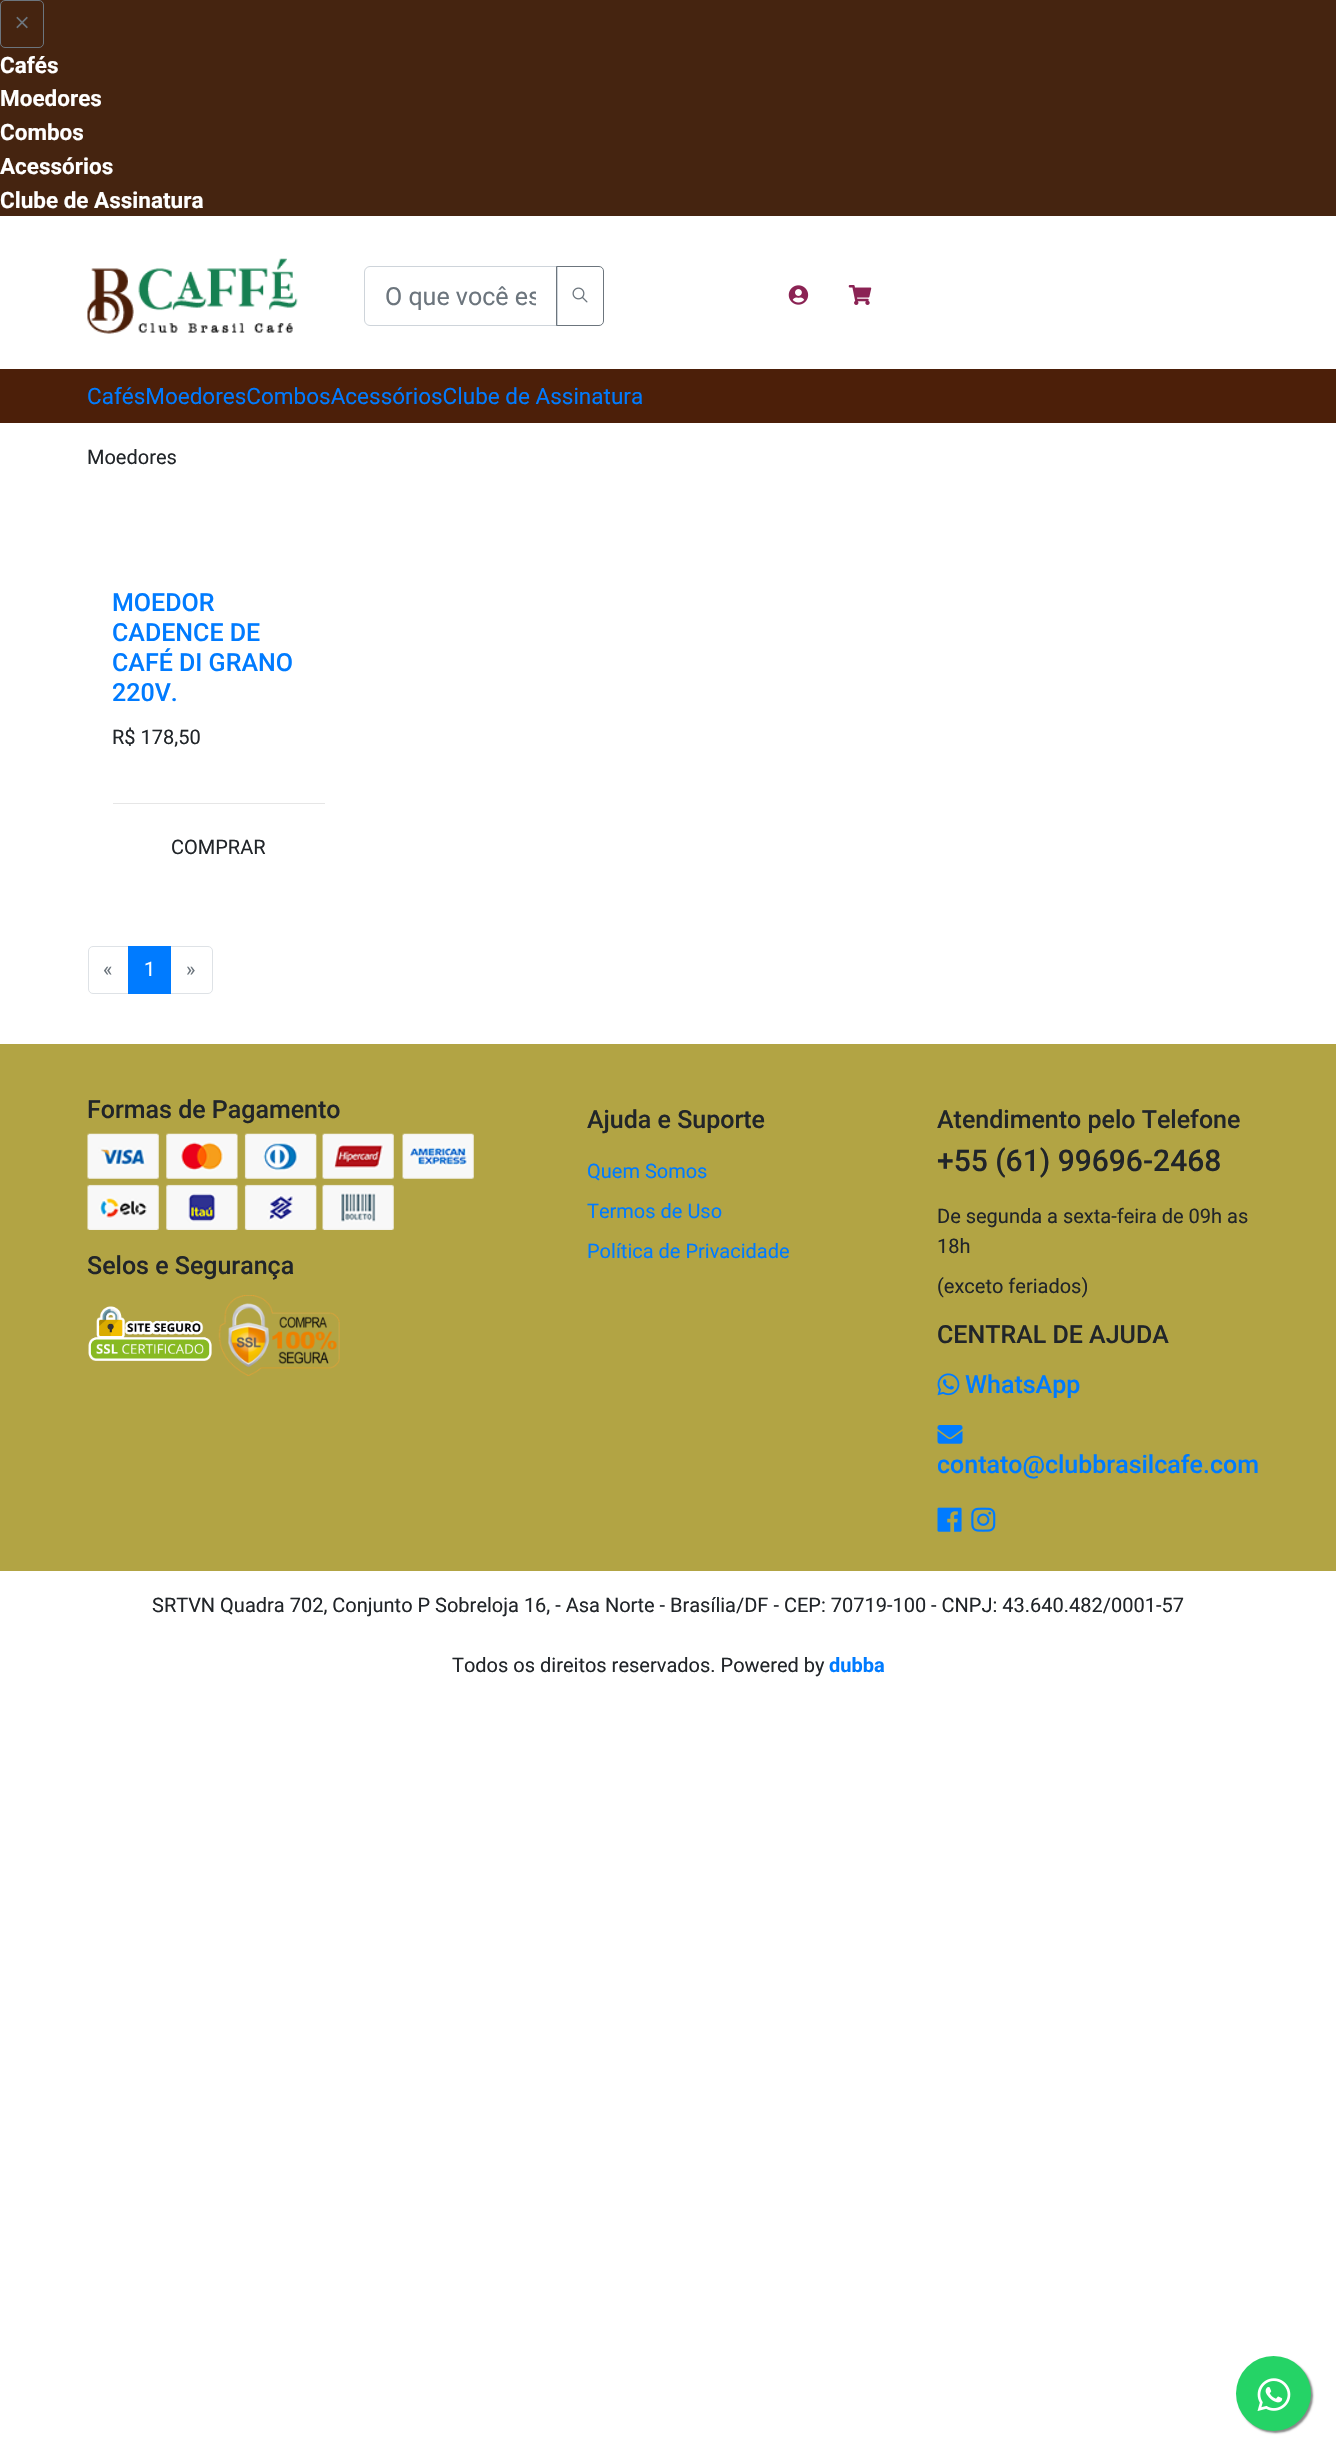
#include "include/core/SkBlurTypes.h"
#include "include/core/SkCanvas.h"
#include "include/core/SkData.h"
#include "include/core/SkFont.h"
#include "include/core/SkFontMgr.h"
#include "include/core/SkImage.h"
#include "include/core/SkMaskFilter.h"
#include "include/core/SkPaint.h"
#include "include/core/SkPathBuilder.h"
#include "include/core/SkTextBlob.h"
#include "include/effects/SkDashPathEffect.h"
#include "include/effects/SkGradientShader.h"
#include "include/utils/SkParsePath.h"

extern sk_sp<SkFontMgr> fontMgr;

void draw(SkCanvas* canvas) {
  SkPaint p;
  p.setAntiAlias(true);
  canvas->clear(SK_ColorWHITE);
  p.setColor(SkColorSetRGB(69, 36, 16));
  canvas->drawRect(SkRect::MakeLTRB(0, 0, 1336, 216), p);
  p.setStyle(SkPaint::kStroke_Style);
  p.setStrokeWidth(1);
  p.setColor(SkColorSetRGB(108, 117, 125));
  canvas->drawRoundRect(SkRect::MakeLTRB(0.5f, 0.5f, 43.5f, 47.5f), 4.5f, 4.5f, p);
  canvas->drawImageRect(SkImages::DeferredFromEncodedData(SkData::MakeFromFileName("images/1.png")), SkRect::MakeLTRB(16, 16, 28, 29), SkSamplingOptions());
  canvas->drawImageRect(SkImages::DeferredFromEncodedData(SkData::MakeFromFileName("images/2.png")), SkRect::MakeLTRB(87, 258, 298, 334), SkSamplingOptions());
  p.setColor(SkColorSetRGB(206, 212, 218));
  canvas->drawPath(SkPathBuilder().moveTo(370, 266.5f).lineTo(557.5f, 266.5f).lineTo(557.5f, 325.5f).lineTo(370, 325.5f).cubicTo(367, 325.5f, 364.5f, 323, 364.5f, 320).lineTo(364.5f, 272).cubicTo(364.5f, 269, 367, 266.5f, 370, 266.5f).close().detach(), p);
  p.setColor(SkColorSetRGB(108, 117, 125));
  canvas->drawPath(SkPathBuilder().moveTo(556.5f, 266.5f).lineTo(599, 266.5f).cubicTo(601.5f, 266.5f, 603.5f, 268.5f, 603.5f, 271).lineTo(603.5f, 321).cubicTo(603.5f, 323.5f, 601.5f, 325.5f, 599, 325.5f).lineTo(556.5f, 325.5f).close().detach(), p);
  canvas->drawImageRect(SkImages::DeferredFromEncodedData(SkData::MakeFromFileName("images/3.png")), SkRect::MakeLTRB(572, 287, 588, 303), SkSamplingOptions());
  canvas->drawImageRect(SkImages::DeferredFromEncodedData(SkData::MakeFromFileName("images/4.png")), SkRect::MakeLTRB(788, 285, 809, 305), SkSamplingOptions());
  canvas->drawImageRect(SkImages::DeferredFromEncodedData(SkData::MakeFromFileName("images/5.png")), SkRect::MakeLTRB(848, 285, 872, 305), SkSamplingOptions());
  p.setStyle(SkPaint::kFill_Style);
  p.setColor(SkColorSetRGB(76, 31, 9));
  canvas->drawRect(SkRect::MakeLTRB(0, 369, 1336, 423), p);
  p.setColor(SkColorSetRGB(230, 230, 230));
  canvas->drawRect(SkRect::MakeLTRB(113, 803, 325, 804), p);
  p.setStyle(SkPaint::kStroke_Style);
  p.setColor(SkColorSetRGB(222, 226, 230));
  canvas->drawPath(SkPathBuilder().moveTo(93, 946.5f).lineTo(128.5f, 946.5f).lineTo(128.5f, 993.5f).lineTo(93, 993.5f).cubicTo(90.5f, 993.5f, 88.5f, 991.5f, 88.5f, 989).lineTo(88.5f, 951).cubicTo(88.5f, 948.5f, 90.5f, 946.5f, 93, 946.5f).close().detach(), p);
  canvas->drawPath(SkPathBuilder().moveTo(170.5f, 946.5f).lineTo(208, 946.5f).cubicTo(210.5f, 946.5f, 212.5f, 948.5f, 212.5f, 951).lineTo(212.5f, 989).cubicTo(212.5f, 991.5f, 210.5f, 993.5f, 208, 993.5f).lineTo(170.5f, 993.5f).close().detach(), p);
  p.setStyle(SkPaint::kFill_Style);
  p.setColor(SkColorSetRGB(0, 123, 255));
  canvas->drawRect(SkRect::MakeLTRB(128, 946, 171, 994), p);
  p.setColor(SkColorSetRGB(178, 164, 68));
  canvas->drawRect(SkRect::MakeLTRB(0, 1044, 1336, 1571), p);
  canvas->drawImageRect(SkImages::DeferredFromEncodedData(SkData::MakeFromFileName("images/6.png")), SkRect::MakeLTRB(87, 1133, 474, 1230), SkSamplingOptions());
  canvas->drawImageRect(SkImages::DeferredFromEncodedData(SkData::MakeFromFileName("images/7.png")), SkRect::MakeLTRB(88, 1306, 212, 1361), SkSamplingOptions());
  canvas->drawImageRect(SkImages::DeferredFromEncodedData(SkData::MakeFromFileName("images/8.png")), SkRect::MakeLTRB(218, 1295, 340, 1376), SkSamplingOptions());
  canvas->drawImageRect(SkImages::DeferredFromEncodedData(SkData::MakeFromFileName("images/9.png")), SkRect::MakeLTRB(937, 1373, 960, 1396), SkSamplingOptions());
  canvas->drawImageRect(SkImages::DeferredFromEncodedData(SkData::MakeFromFileName("images/10.png")), SkRect::MakeLTRB(937, 1425, 963, 1444), SkSamplingOptions());
  canvas->drawImageRect(SkImages::DeferredFromEncodedData(SkData::MakeFromFileName("images/11.png")), SkRect::MakeLTRB(937, 1507, 962, 1532), SkSamplingOptions());
  canvas->drawImageRect(SkImages::DeferredFromEncodedData(SkData::MakeFromFileName("images/12.png")), SkRect::MakeLTRB(971, 1507, 996, 1532), SkSamplingOptions());
  p.setColor(SkColorSetRGB(136, 136, 136));
  p.setMaskFilter(SkMaskFilter::MakeBlur(kNormal_SkBlurStyle, 1));
  canvas->drawRoundRect(SkRect::MakeLTRB(1238, 2358, 1313, 2433), 37.5f, 37.5f, p);
  p.setMaskFilter(nullptr);
  p.setColor(SkColorSetRGB(37, 211, 102));
  canvas->drawCircle(1273.5f, 2393.5f, 37.5f, p);
  canvas->drawImageRect(SkImages::DeferredFromEncodedData(SkData::MakeFromFileName("images/13.png")), SkRect::MakeLTRB(1257, 2378, 1291, 2411), SkSamplingOptions());
  SkFont font1(fontMgr->matchFamilyStyle("Roboto", SkFontStyle::Bold()), 22.5f);
  font1.setSubpixel(true);
  p.setColor(SK_ColorWHITE);
  canvas->drawString("Cafés", 0, 73, font1, p);
  canvas->drawString("Moedores", 0, 106, font1, p);
  canvas->drawString("Combos", 0, 140, font1, p);
  canvas->drawString("Acessórios", 0, 174, font1, p);
  canvas->drawString("Clube de Assinatura", 0, 208, font1, p);
  canvas->save();
  canvas->clipRect(SkRect::MakeLTRB(385, 281, 536, 311));
  SkFont font2(fontMgr->matchFamilyStyle("Roboto", SkFontStyle::Normal()), 25);
  font2.setSubpixel(true);
  p.setColor(SkColorSetRGB(108, 117, 125));
  canvas->drawString("O que você es", 385, 305, font2, p);
  canvas->restore();
  SkFont font3(fontMgr->matchFamilyStyle("Roboto", SkFontStyle::Normal()), 22.5f);
  font3.setSubpixel(true);
  p.setColor(SkColorSetRGB(0, 123, 255));
  canvas->drawString("CafésMoedoresCombosAcessóriosClube de Assinatura", 87, 404, font3, p);
  SkFont font4(fontMgr->matchFamilyStyle("Roboto", SkFontStyle::Normal()), 20);
  font4.setSubpixel(true);
  p.setColor(SkColorSetRGB(33, 37, 41));
  canvas->drawString("Moedores", 87, 464, font4, p);
  SkFont font5(fontMgr->matchFamilyStyle("Roboto", SkFontStyle(500, SkFontStyle::kNormal_Width, SkFontStyle::kUpright_Slant)), 25);
  font5.setSubpixel(true);
  p.setColor(SkColorSetRGB(0, 123, 255));
  canvas->drawString("MOEDOR", 112, 611, font5, p);
  canvas->drawString("CADENCE DE", 112, 641, font5, p);
  canvas->drawString("CAFÉ DI GRANO", 112, 671, font5, p);
  canvas->drawString("220V.", 112, 701, font5, p);
  p.setColor(SkColorSetRGB(33, 37, 41));
  canvas->drawString("R$ 178,50", 112, 744, font4, p);
  canvas->drawString("COMPRAR", 171, 854, font4, p);
  p.setColor(SkColorSetRGB(108, 117, 125));
  canvas->drawString("«", 103, 976, font4, p);
  p.setColor(SK_ColorWHITE);
  canvas->drawString("1", 144, 976, font4, p);
  p.setColor(SkColorSetRGB(108, 117, 125));
  canvas->drawString("»", 186, 976, font4, p);
  p.setColor(SkColorSetRGB(33, 37, 41));
  canvas->drawString("Formas de Pagamento", 87, 1118, font5, p);
  canvas->drawString("Selos e Segurança", 87, 1274, font5, p);
  canvas->drawString("Ajuda e Suporte", 587, 1128, font5, p);
  p.setColor(SkColorSetRGB(0, 123, 255));
  canvas->drawString("Quem Somos", 587, 1178, font4, p);
  canvas->drawString("Termos de Uso", 587, 1218, font4, p);
  canvas->drawString("Política de Privacidade", 587, 1258, font4, p);
  p.setColor(SkColorSetRGB(33, 37, 41));
  canvas->drawString("Atendimento pelo Telefone", 937, 1128, font5, p);
  SkFont font6(fontMgr->matchFamilyStyle("Roboto", SkFontStyle(500, SkFontStyle::kNormal_Width, SkFontStyle::kUpright_Slant)), 30);
  font6.setSubpixel(true);
  canvas->drawString("+55 (61) 99696-2468", 937, 1171, font6, p);
  canvas->drawString("De segunda a sexta-feira de 09h as", 937, 1223, font4, p);
  canvas->drawString("18h", 937, 1253, font4, p);
  canvas->drawString("(exceto feriados)", 937, 1293, font4, p);
  canvas->drawString("CENTRAL DE AJUDA", 937, 1343, font5, p);
  p.setColor(SkColorSetRGB(0, 123, 255));
  canvas->drawString("WhatsApp", 965, 1393, font5, p);
  canvas->drawString("contato@clubbrasilcafe.com", 937, 1473, font5, p);
  p.setColor(SkColorSetRGB(33, 37, 41));
  canvas->drawString("SRTVN Quadra 702, Conjunto P Sobreloja 16, - Asa Norte - Brasília/DF - CEP: 70719-100 - CNPJ: 43.640.482/0001-57", 152, 1612, font4, p);
  canvas->drawString("Todos os direitos reservados. Powered by", 452, 1672, font4, p);
  SkFont font7(fontMgr->matchFamilyStyle("Roboto", SkFontStyle::Bold()), 20);
  font7.setSubpixel(true);
  p.setColor(SkColorSetRGB(0, 123, 255));
  canvas->drawString("dubba", 829, 1672, font7, p);
}
